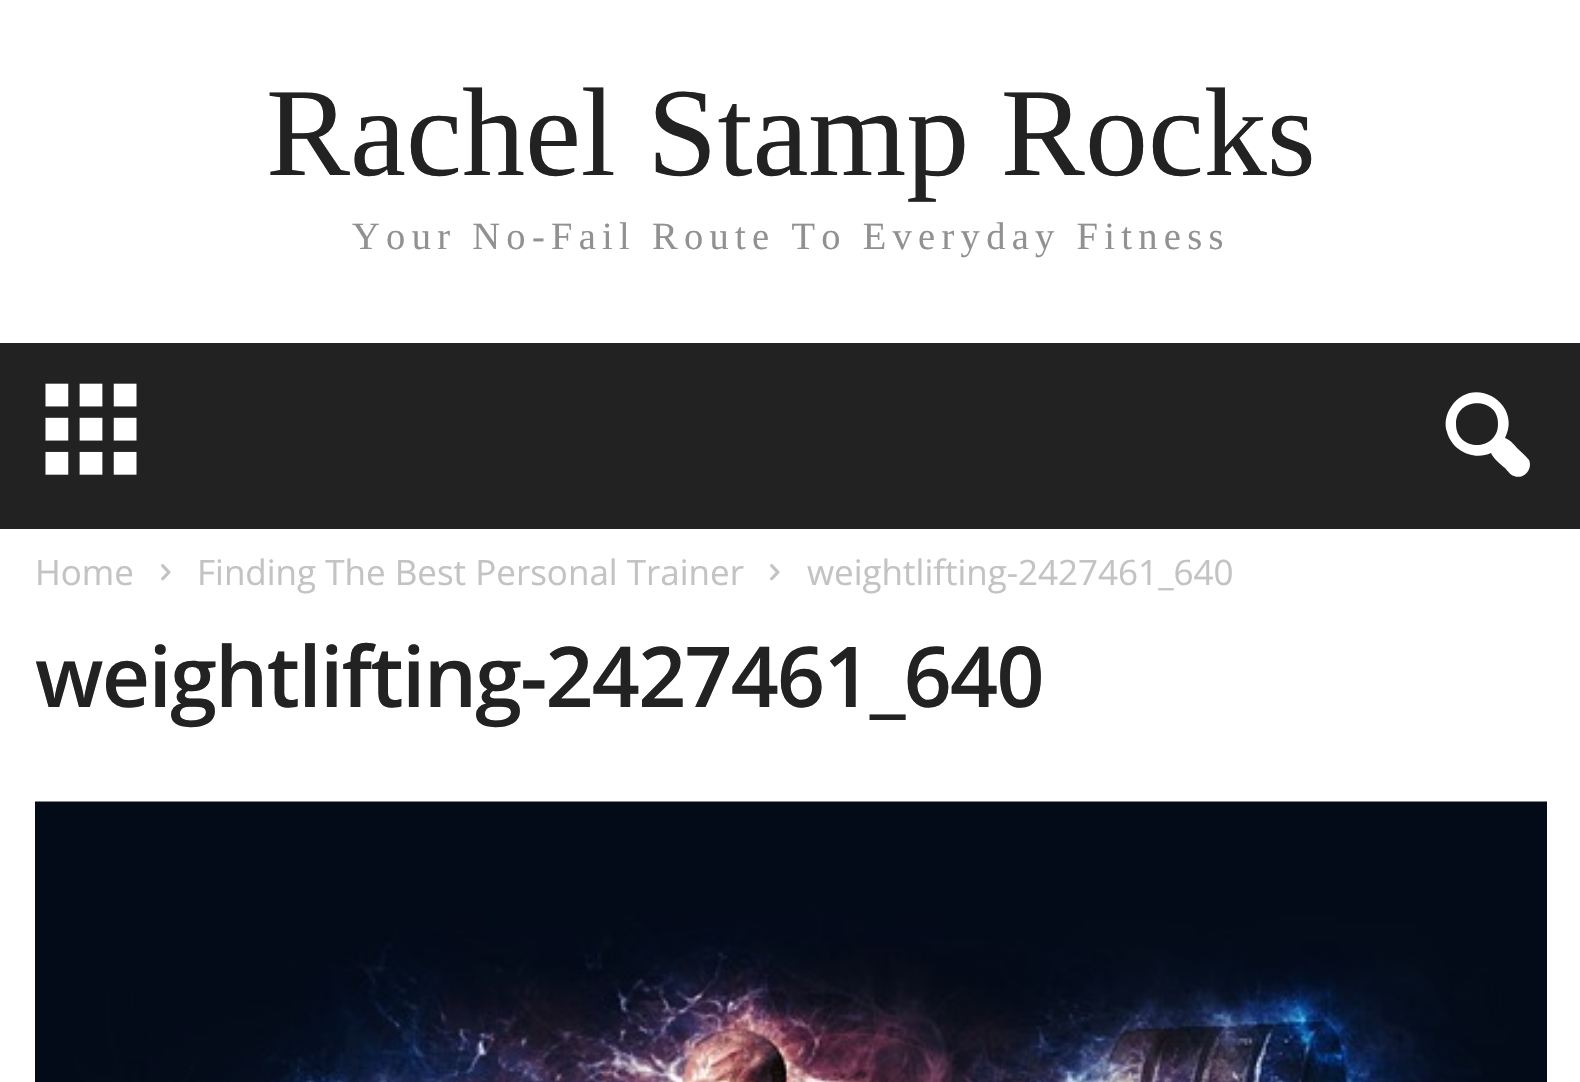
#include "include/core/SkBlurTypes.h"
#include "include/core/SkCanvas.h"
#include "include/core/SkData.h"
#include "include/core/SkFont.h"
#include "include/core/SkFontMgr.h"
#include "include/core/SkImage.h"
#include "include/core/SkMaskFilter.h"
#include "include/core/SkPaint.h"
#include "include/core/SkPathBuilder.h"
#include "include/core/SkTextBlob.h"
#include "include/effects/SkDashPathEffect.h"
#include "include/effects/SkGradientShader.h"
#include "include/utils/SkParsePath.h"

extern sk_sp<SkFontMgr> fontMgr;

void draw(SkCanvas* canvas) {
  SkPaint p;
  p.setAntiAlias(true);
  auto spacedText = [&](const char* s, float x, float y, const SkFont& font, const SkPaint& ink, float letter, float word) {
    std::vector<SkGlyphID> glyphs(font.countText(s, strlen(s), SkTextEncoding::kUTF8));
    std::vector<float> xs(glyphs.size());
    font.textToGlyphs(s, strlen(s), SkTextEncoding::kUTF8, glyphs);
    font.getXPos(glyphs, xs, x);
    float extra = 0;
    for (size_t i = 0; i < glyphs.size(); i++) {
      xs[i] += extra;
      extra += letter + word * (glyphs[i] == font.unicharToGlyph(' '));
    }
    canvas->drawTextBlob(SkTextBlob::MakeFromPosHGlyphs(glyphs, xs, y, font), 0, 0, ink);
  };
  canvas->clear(SK_ColorWHITE);
  p.setColor(SkColorSetRGB(34, 34, 34));
  canvas->drawRect(SkRect::MakeLTRB(0, 343, 1580, 529), p);
  canvas->drawImageRect(SkImages::DeferredFromEncodedData(SkData::MakeFromFileName("images/1.png")), SkRect::MakeLTRB(45, 383, 137, 475), SkSamplingOptions());
  p.setColor(SK_ColorWHITE);
  canvas->drawPath(SkPathBuilder().moveTo(1447, 432).cubicTo(1444, 424, 1446, 414, 1451, 407).cubicTo(1473, 373, 1523, 404, 1505, 438).cubicTo(1511, 440, 1515, 446, 1518, 449).cubicTo(1522, 453, 1526, 456, 1529, 460).cubicTo(1533, 469, 1524, 480, 1514, 476).cubicTo(1510, 475, 1508, 471, 1505, 468).cubicTo(1501, 465, 1493, 458, 1491, 453).cubicTo(1474, 461, 1452, 451, 1447, 432).close().moveTo(1456, 424).cubicTo(1456, 452, 1498, 452, 1498, 424).cubicTo(1499, 397, 1456, 396, 1456, 424).close().detach(), p);
  canvas->drawImageRect(SkImages::DeferredFromEncodedData(SkData::MakeFromFileName("images/2.png")), SkRect::MakeLTRB(161, 564, 171, 581), SkSamplingOptions());
  canvas->drawImageRect(SkImages::DeferredFromEncodedData(SkData::MakeFromFileName("images/2.png")), SkRect::MakeLTRB(770, 564, 780, 581), SkSamplingOptions());
  canvas->drawImageRect(SkImages::DeferredFromEncodedData(SkData::MakeFromFileName("images/3.png")), SkRect::MakeLTRB(35, 801, 1547, 1082), SkSamplingOptions());
  SkFont font1(fontMgr->matchFamilyStyle("Liberation Serif", SkFontStyle::Normal()), 126);
  font1.setSubpixel(true);
  p.setColor(SkColorSetRGB(34, 34, 34));
  canvas->drawString("Rachel Stamp Rocks", 266, 175, font1, p);
  SkFont font2(fontMgr->matchFamilyStyle("Liberation Serif", SkFontStyle::Normal()), 38.5f);
  font2.setSubpixel(true);
  p.setColor(SkColorSetRGB(145, 145, 145));
  spacedText("Your No-Fail Route To Everyday Fitness", 352, 249, font2, p, 6.3f, 0);
  SkFont font3(fontMgr->matchFamilyStyle("Open Sans", SkFontStyle::Normal()), 35);
  font3.setSubpixel(true);
  p.setColor(SkColorSetRGB(195, 195, 195));
  canvas->drawString("Home", 35, 585, font3, p);
  canvas->drawString("Finding The Best Personal Trainer", 197, 585, font3, p);
  canvas->drawString("weightlifting-2427461_640", 807, 585, font3, p);
  SkFont font4(fontMgr->matchFamilyStyle("Open Sans", SkFontStyle(600, SkFontStyle::kNormal_Width, SkFontStyle::kUpright_Slant)), 84);
  font4.setSubpixel(true);
  p.setColor(SkColorSetRGB(34, 34, 34));
  spacedText("weightlifting-2427461_640", 35, 707, font4, p, -1.7f, 0);
}
